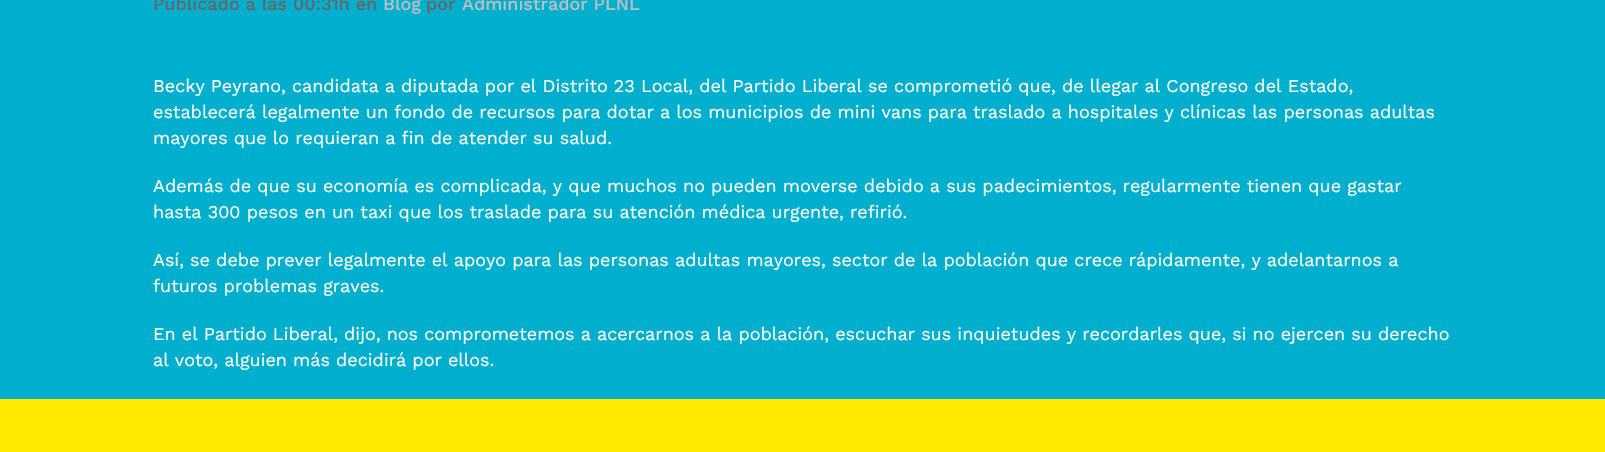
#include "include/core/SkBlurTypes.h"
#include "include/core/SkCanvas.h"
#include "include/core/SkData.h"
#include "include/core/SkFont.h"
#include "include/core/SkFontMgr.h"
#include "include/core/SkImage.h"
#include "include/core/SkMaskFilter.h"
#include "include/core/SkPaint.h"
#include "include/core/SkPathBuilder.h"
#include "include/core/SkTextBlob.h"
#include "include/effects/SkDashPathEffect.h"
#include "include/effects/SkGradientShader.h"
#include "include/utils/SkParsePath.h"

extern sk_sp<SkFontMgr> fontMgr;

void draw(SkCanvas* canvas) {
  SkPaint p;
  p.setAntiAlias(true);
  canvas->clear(SkColorSetRGB(0, 175, 206));
  p.setColor(SkColorSetRGB(255, 234, 0));
  canvas->drawRect(SkRect::MakeLTRB(0, 399, 1605, 452), p);
  SkFont font1(fontMgr->matchFamilyStyle("Work Sans", SkFontStyle(500, SkFontStyle::kNormal_Width, SkFontStyle::kUpright_Slant)), 18);
  font1.setSubpixel(true);
  p.setColor(SkColorSetRGB(102, 102, 102));
  canvas->drawString("Publicado a las 00:31h en", 153, 10, font1, p);
  p.setColor(SkColorSetRGB(190, 190, 190));
  canvas->drawString("Blog", 383, 10, font1, p);
  p.setColor(SkColorSetRGB(102, 102, 102));
  canvas->drawString("por", 426, 10, font1, p);
  p.setColor(SkColorSetRGB(190, 190, 190));
  canvas->drawString("Administrador PLNL", 462, 10, font1, p);
  SkFont font2(fontMgr->matchFamilyStyle("Work Sans", SkFontStyle::Normal()), 18);
  font2.setSubpixel(true);
  p.setColor(SK_ColorWHITE);
  canvas->drawString("Becky Peyrano, candidata a diputada por el Distrito 23 Local, del Partido Liberal se comprometió que, de llegar al Congreso del Estado,", 153, 92, font2, p);
  canvas->drawString("establecerá legalmente un fondo de recursos para dotar a los municipios de mini vans para traslado a hospitales y clínicas las personas adultas", 153, 118, font2, p);
  canvas->drawString("mayores que lo requieran a fin de atender su salud.", 153, 144, font2, p);
  canvas->drawString("Además de que su economía es complicada, y que muchos no pueden moverse debido a sus padecimientos, regularmente tienen que gastar", 153, 192, font2, p);
  canvas->drawString("hasta 300 pesos en un taxi que los traslade para su atención médica urgente, refirió.", 153, 218, font2, p);
  canvas->drawString("Así, se debe prever legalmente el apoyo para las personas adultas mayores, sector de la población que crece rápidamente, y adelantarnos a", 153, 266, font2, p);
  canvas->drawString("futuros problemas graves.", 153, 292, font2, p);
  canvas->drawString("En el Partido Liberal, dijo, nos comprometemos a acercarnos a la población, escuchar sus inquietudes y recordarles que, si no ejercen su derecho", 153, 340, font2, p);
  canvas->drawString("al voto, alguien más decidirá por ellos.", 153, 366, font2, p);
}
